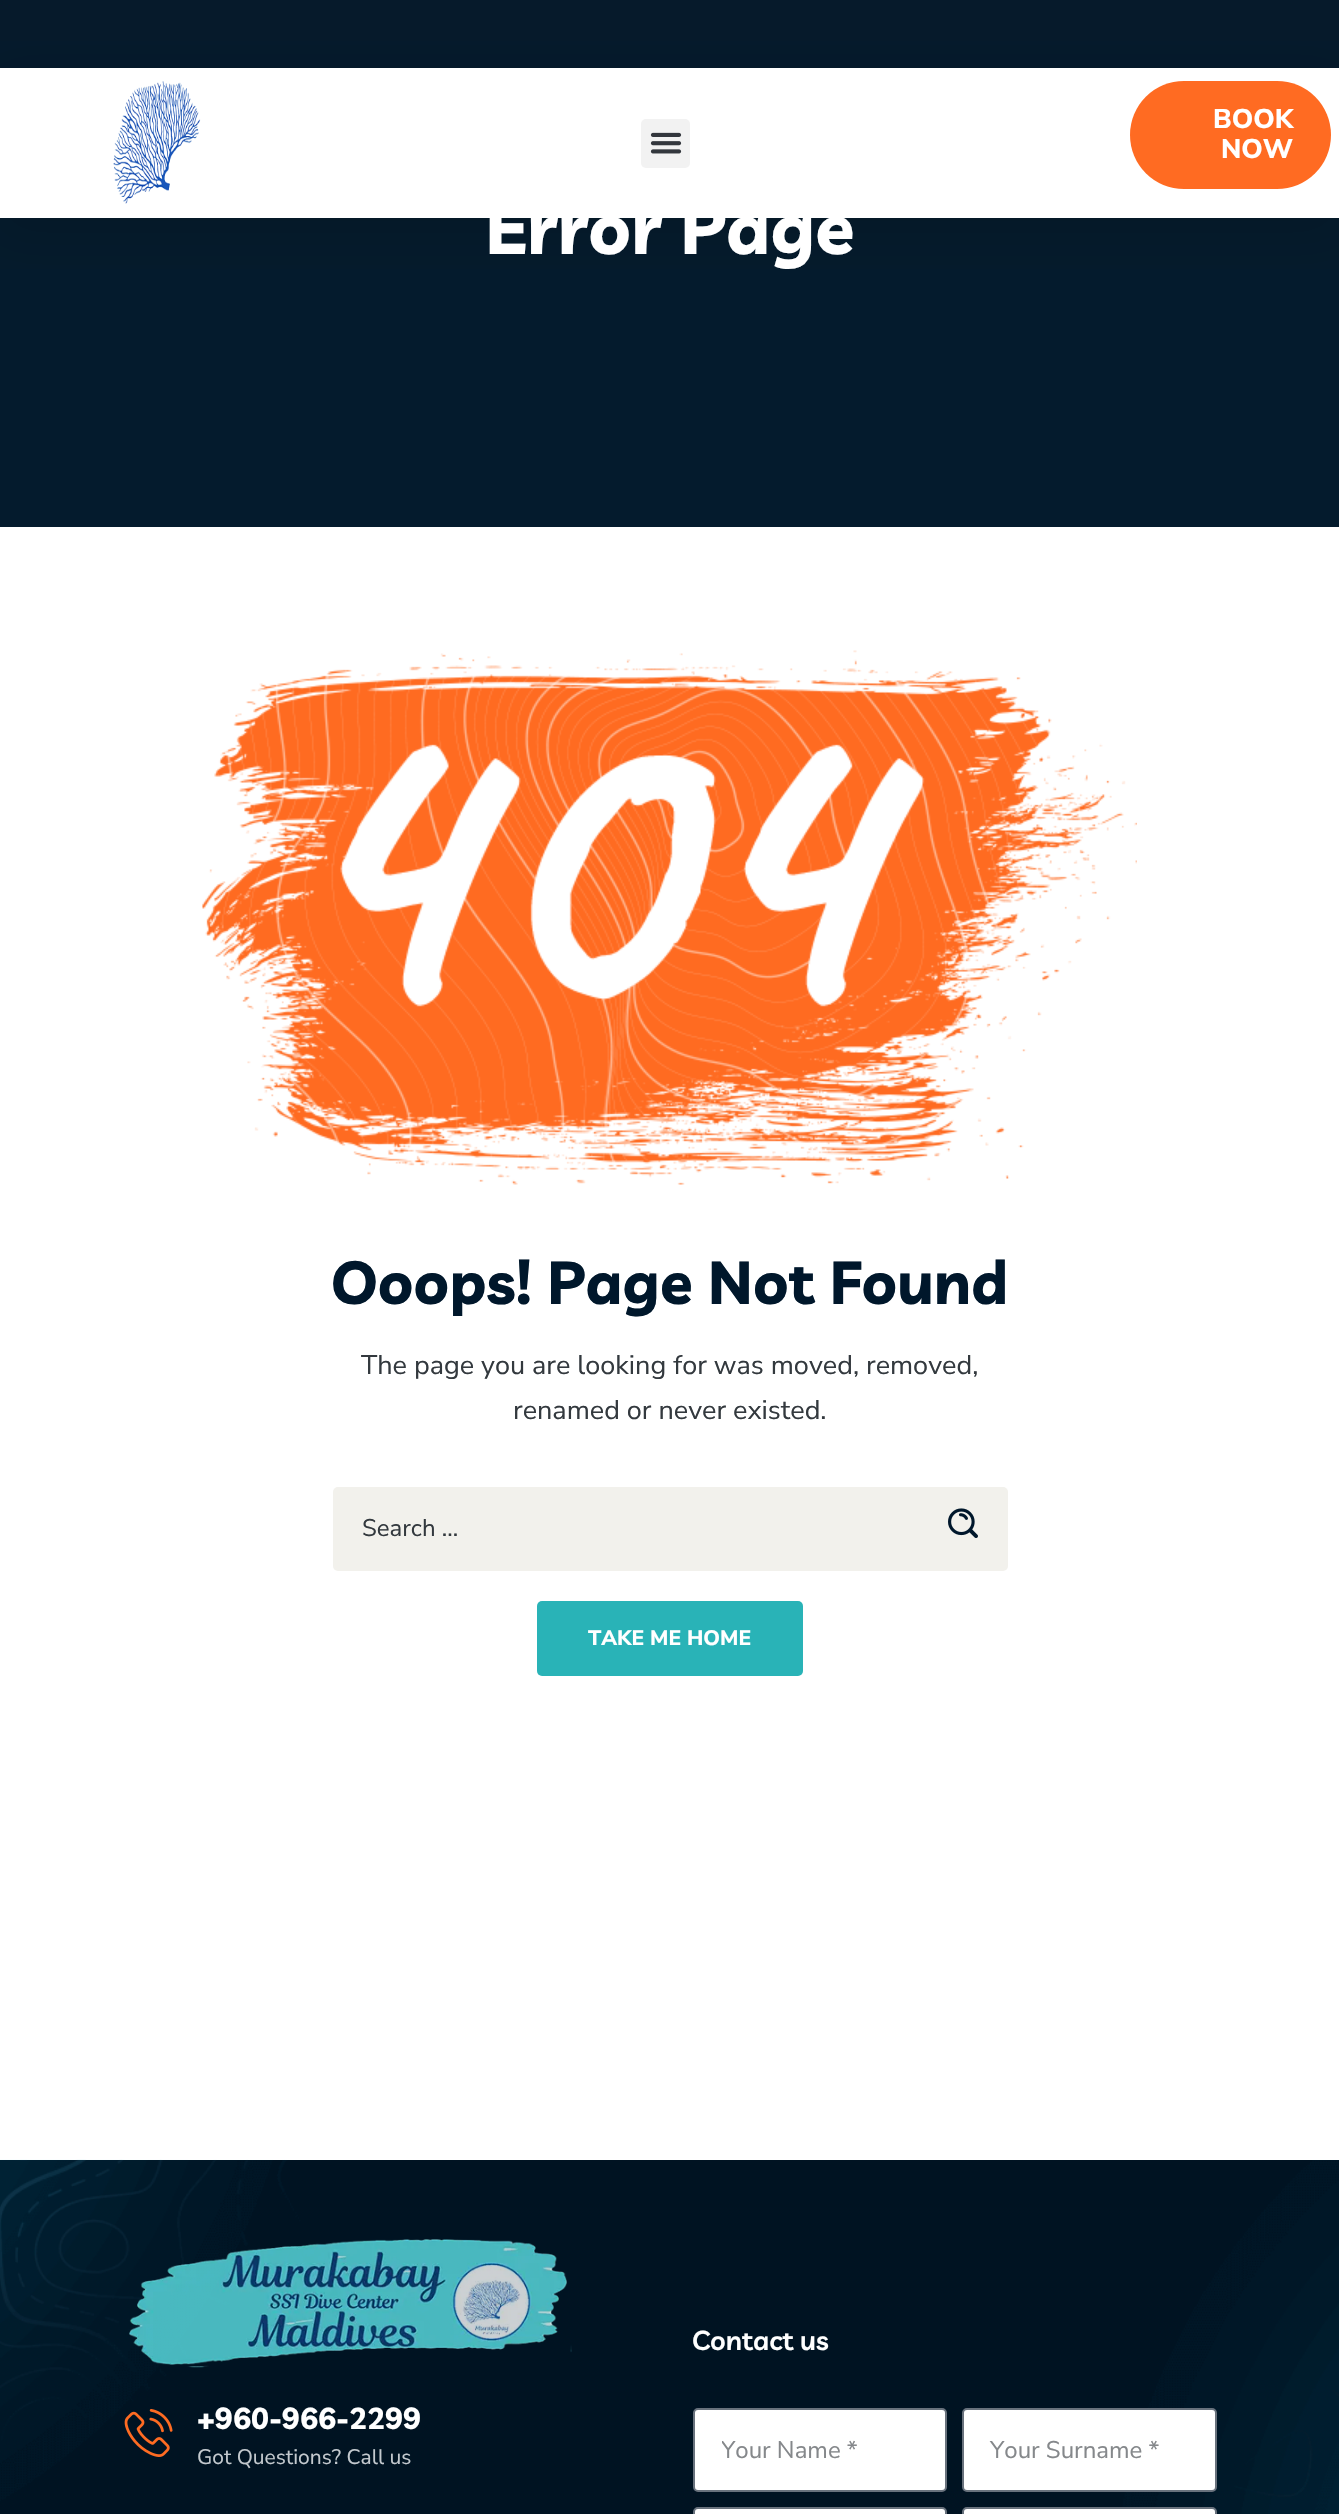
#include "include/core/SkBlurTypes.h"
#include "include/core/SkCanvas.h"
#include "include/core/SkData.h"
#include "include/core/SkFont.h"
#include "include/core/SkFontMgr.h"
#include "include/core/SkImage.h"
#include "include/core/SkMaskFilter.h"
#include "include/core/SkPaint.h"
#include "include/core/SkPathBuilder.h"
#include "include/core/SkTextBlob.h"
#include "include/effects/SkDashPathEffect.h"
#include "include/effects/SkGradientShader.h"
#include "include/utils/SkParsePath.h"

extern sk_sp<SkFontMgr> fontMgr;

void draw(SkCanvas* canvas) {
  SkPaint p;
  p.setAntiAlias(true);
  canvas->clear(SK_ColorWHITE);
  {
    const SkColor colors[] = {SkColorSetRGB(4, 27, 45), SkColorSetRGB(4, 27, 45), SkColorSetRGB(6, 26, 43)};
    const float stops[] = {0, 0.24f, 1};
    const SkPoint ends[] = {{670, 527}, {670, -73}};
    p.setShader(SkGradientShader::MakeLinear(ends, colors, stops, 3, SkTileMode::kClamp));
    p.setAlpha(255);
  }
  canvas->drawRect(SkRect::MakeLTRB(0, 0, 1339, 527), p);
  p.setShader(nullptr);
  p.setColor(SkColorSetARGB(31, 0, 0, 0));
  p.setMaskFilter(SkMaskFilter::MakeBlur(kNormal_SkBlurStyle, 22.5f));
  canvas->drawRect(SkRect::MakeLTRB(0, 80, 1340, 230), p);
  p.setMaskFilter(nullptr);
  p.setColor(SK_ColorWHITE);
  canvas->drawRect(SkRect::MakeLTRB(0, 68, 1339, 218), p);
  canvas->drawImageRect(SkImages::DeferredFromEncodedData(SkData::MakeFromFileName("images/1.png")), SkRect::MakeLTRB(113, 81, 201, 204), SkSamplingOptions());
  p.setColor(SkColorSetRGB(242, 242, 242));
  canvas->drawRoundRect(SkRect::MakeLTRB(641, 119, 690, 168), 5, 5, p);
  canvas->drawImageRect(SkImages::DeferredFromEncodedData(SkData::MakeFromFileName("images/2.png")), SkRect::MakeLTRB(650, 132, 682, 154), SkSamplingOptions());
  p.setColor(SkColorSetRGB(255, 107, 34));
  canvas->drawRoundRect(SkRect::MakeLTRB(1130, 81, 1331, 189), 54, 54, p);
  canvas->drawImageRect(SkImages::DeferredFromEncodedData(SkData::MakeFromFileName("images/3.png")), SkRect::MakeLTRB(202, 650, 1137, 1185), SkSamplingOptions());
  p.setColor(SkColorSetRGB(242, 241, 236));
  canvas->drawRoundRect(SkRect::MakeLTRB(333, 1487, 1008, 1571), 5, 5, p);
  canvas->drawImageRect(SkImages::DeferredFromEncodedData(SkData::MakeFromFileName("images/4.png")), SkRect::MakeLTRB(948, 1508, 978, 1538), SkSamplingOptions());
  p.setColor(SkColorSetRGB(41, 179, 183));
  canvas->drawRoundRect(SkRect::MakeLTRB(537, 1601, 803, 1676), 5, 5, p);
  p.setColor(SkColorSetRGB(0, 19, 34));
  canvas->drawRect(SkRect::MakeLTRB(0, 2160, 1339, 2514), p);
  canvas->drawImageRect(SkImages::DeferredFromEncodedData(SkData::MakeFromFileName("images/5.png")), SkRect::MakeLTRB(0, 2159, 1339, 2514), SkSamplingOptions());
  canvas->drawImageRect(SkImages::DeferredFromEncodedData(SkData::MakeFromFileName("images/6.png")), SkRect::MakeLTRB(129, 2239, 572, 2368), SkSamplingOptions());
  canvas->drawImageRect(SkImages::DeferredFromEncodedData(SkData::MakeFromFileName("images/7.png")), SkRect::MakeLTRB(124, 2409, 173, 2457), SkSamplingOptions());
  p.setColor(SK_ColorWHITE);
  canvas->drawRoundRect(SkRect::MakeLTRB(694, 2409, 946, 2491), 4, 4, p);
  p.setStyle(SkPaint::kStroke_Style);
  p.setStrokeWidth(2);
  p.setColor(SkColorSetRGB(105, 114, 125));
  canvas->drawRoundRect(SkRect::MakeLTRB(694, 2409, 946, 2491), 4, 4, p);
  p.setStyle(SkPaint::kFill_Style);
  p.setColor(SK_ColorWHITE);
  canvas->drawRoundRect(SkRect::MakeLTRB(963, 2409, 1216, 2491), 4, 4, p);
  p.setStyle(SkPaint::kStroke_Style);
  p.setColor(SkColorSetRGB(105, 114, 125));
  canvas->drawRoundRect(SkRect::MakeLTRB(963, 2409, 1216, 2491), 4, 4, p);
  p.setStyle(SkPaint::kFill_Style);
  p.setColor(SK_ColorWHITE);
  canvas->drawRoundRect(SkRect::MakeLTRB(694, 2508, 946, 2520), 4, 4, p);
  p.setStyle(SkPaint::kStroke_Style);
  p.setColor(SkColorSetRGB(105, 114, 125));
  canvas->drawRoundRect(SkRect::MakeLTRB(694, 2508, 946, 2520), 4, 4, p);
  p.setStyle(SkPaint::kFill_Style);
  p.setColor(SK_ColorWHITE);
  canvas->drawRoundRect(SkRect::MakeLTRB(963, 2508, 1216, 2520), 4, 4, p);
  p.setStyle(SkPaint::kStroke_Style);
  p.setColor(SkColorSetRGB(105, 114, 125));
  canvas->drawRoundRect(SkRect::MakeLTRB(963, 2508, 1216, 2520), 4, 4, p);
  SkFont font1(fontMgr->matchFamilyStyle("Nunito Sans", SkFontStyle(800, SkFontStyle::kNormal_Width, SkFontStyle::kUpright_Slant)), 27);
  font1.setSubpixel(true);
  p.setStyle(SkPaint::kFill_Style);
  p.setColor(SK_ColorWHITE);
  canvas->drawString("BOOK", 1213, 128, font1, p);
  canvas->drawString("NOW", 1221, 158, font1, p);
  SkFont font2(fontMgr->matchFamilyStyle("Livvic", SkFontStyle::Bold()), 72);
  font2.setSubpixel(true);
  canvas->drawString("Error Page", 485, 254, font2, p);
  SkFont font3(fontMgr->matchFamilyStyle("Livvic", SkFontStyle::Bold()), 60);
  font3.setSubpixel(true);
  p.setColor(SkColorSetRGB(0, 23, 43));
  canvas->drawString("Ooops! Page Not Found", 331, 1304, font3, p);
  SkFont font4(fontMgr->matchFamilyStyle("Nunito Sans", SkFontStyle::Normal()), 27);
  font4.setSubpixel(true);
  p.setColor(SkColorSetRGB(51, 57, 62));
  canvas->drawString("The page you are looking for was moved, removed,", 361, 1374, font4, p);
  canvas->drawString("renamed or never existed.", 513, 1419, font4, p);
  SkFont font5(fontMgr->matchFamilyStyle("Nunito Sans", SkFontStyle::Normal()), 24);
  font5.setSubpixel(true);
  canvas->drawString("Search …", 362, 1536, font5, p);
  SkFont font6(fontMgr->matchFamilyStyle("Nunito Sans", SkFontStyle(800, SkFontStyle::kNormal_Width, SkFontStyle::kUpright_Slant)), 21);
  font6.setSubpixel(true);
  p.setColor(SK_ColorWHITE);
  canvas->drawString("TAKE ME HOME", 588, 1645, font6, p);
  SkFont font7(fontMgr->matchFamilyStyle("Livvic", SkFontStyle::Bold()), 30);
  font7.setSubpixel(true);
  canvas->drawString("+960-966-2299", 197, 2429, font7, p);
  SkFont font8(fontMgr->matchFamilyStyle("Nunito Sans", SkFontStyle::Normal()), 21);
  font8.setSubpixel(true);
  p.setColor(SkColorSetRGB(195, 201, 206));
  canvas->drawString("Got Questions? Call us", 197, 2464, font8, p);
  SkFont font9(fontMgr->matchFamilyStyle("Livvic", SkFontStyle(600, SkFontStyle::kNormal_Width, SkFontStyle::kUpright_Slant)), 27);
  font9.setSubpixel(true);
  p.setColor(SK_ColorWHITE);
  canvas->drawString("Contact us", 692, 2350, font9, p);
  canvas->save();
  canvas->clipRect(SkRect::MakeLTRB(722, 2433, 918, 2466));
  p.setColor(SkColorSetRGB(133, 136, 139));
  canvas->drawString("Your Name *", 721, 2458, font5, p);
  canvas->restore();
  canvas->drawString("Your Surname *", 990, 2458, font5, p);
}
